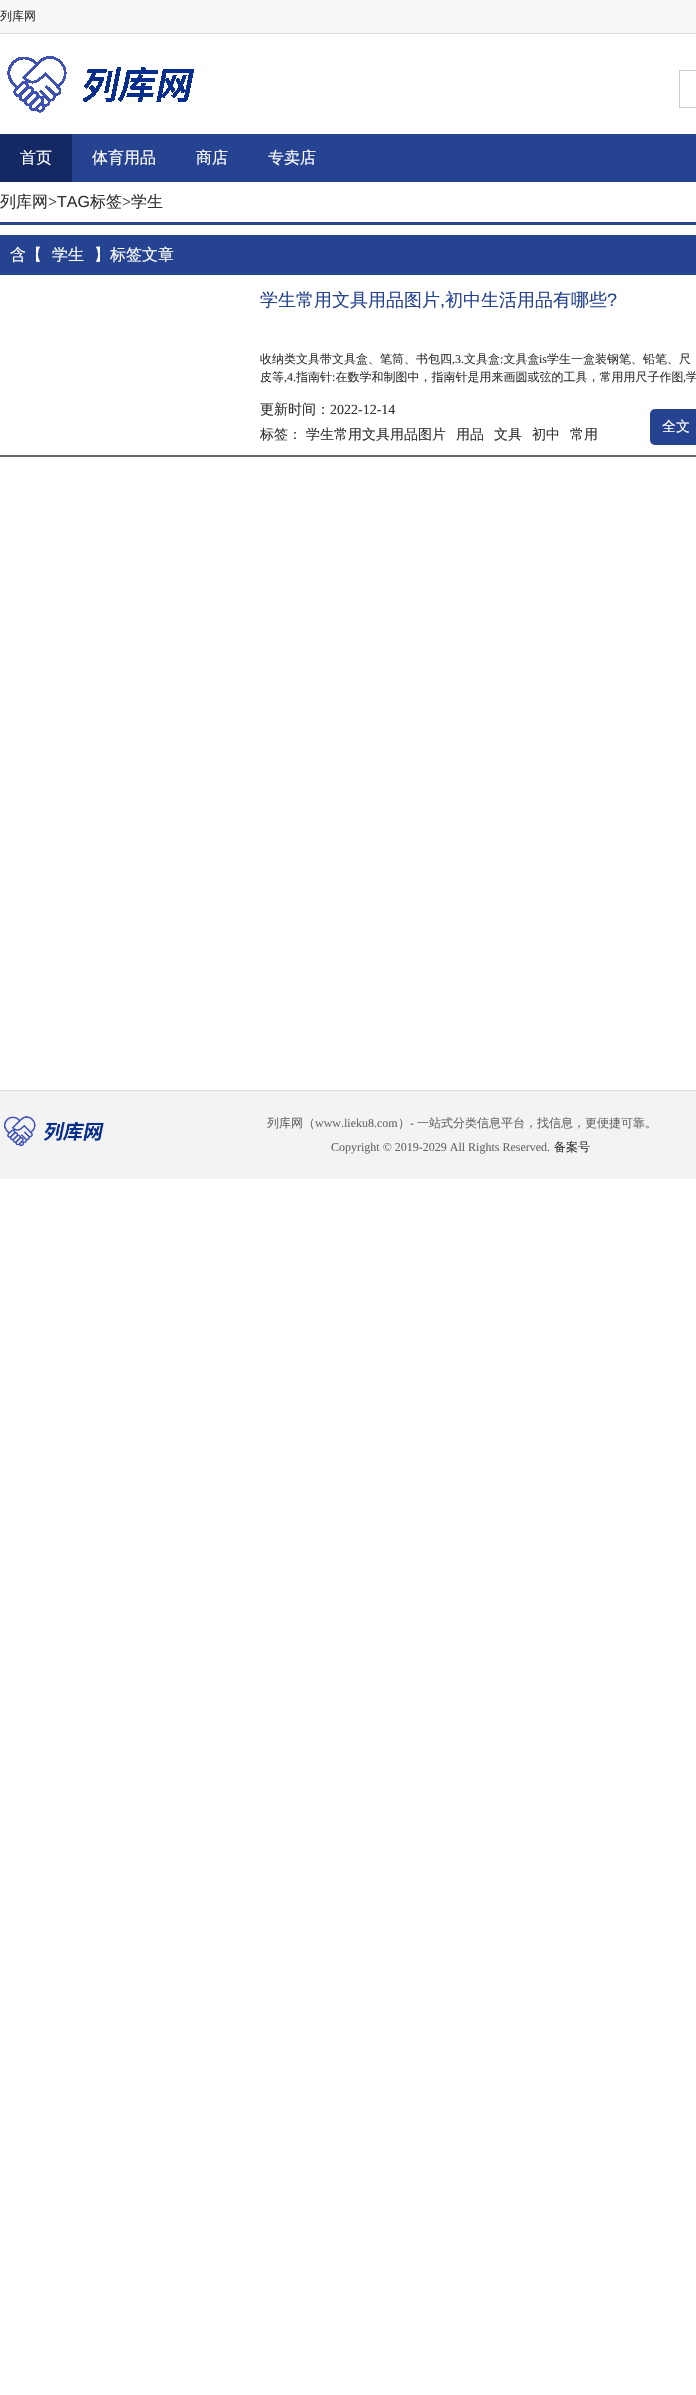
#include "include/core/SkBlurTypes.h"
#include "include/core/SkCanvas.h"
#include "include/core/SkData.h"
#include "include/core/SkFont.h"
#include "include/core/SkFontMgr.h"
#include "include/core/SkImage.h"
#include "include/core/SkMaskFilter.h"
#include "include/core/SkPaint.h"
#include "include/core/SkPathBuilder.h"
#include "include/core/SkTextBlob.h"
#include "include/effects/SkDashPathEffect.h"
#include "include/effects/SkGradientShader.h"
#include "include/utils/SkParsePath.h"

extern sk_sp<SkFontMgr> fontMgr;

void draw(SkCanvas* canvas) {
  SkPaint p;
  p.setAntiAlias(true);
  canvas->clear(SK_ColorWHITE);
  p.setColor(SkColorSetRGB(248, 248, 248));
  canvas->drawRect(SkRect::MakeLTRB(0, 0, 696, 33), p);
  p.setColor(SkColorSetRGB(220, 220, 220));
  canvas->drawRect(SkRect::MakeLTRB(0, 33, 696, 34), p);
  canvas->drawImageRect(SkImages::DeferredFromEncodedData(SkData::MakeFromFileName("images/1.png")), SkRect::MakeLTRB(7, 56, 194, 113), SkSamplingOptions());
  p.setColor(SkColorSetRGB(205, 205, 205));
  canvas->drawRect(SkRect::MakeLTRB(679, 70, 696, 71), p);
  canvas->drawRect(SkRect::MakeLTRB(679, 107, 696, 108), p);
  canvas->drawRect(SkRect::MakeLTRB(679, 70, 680, 108), p);
  p.setColor(SkColorSetRGB(38, 67, 145));
  canvas->drawRect(SkRect::MakeLTRB(72, 134, 696, 182), p);
  p.setColor(SkColorSetRGB(20, 41, 100));
  canvas->drawRect(SkRect::MakeLTRB(0, 134, 72, 182), p);
  p.setColor(SkColorSetRGB(37, 67, 144));
  canvas->drawRect(SkRect::MakeLTRB(0, 222, 696, 225), p);
  canvas->drawRect(SkRect::MakeLTRB(0, 235, 696, 275), p);
  p.setColor(SkColorSetRGB(102, 102, 102));
  canvas->drawRect(SkRect::MakeLTRB(0, 455, 696, 457), p);
  p.setColor(SkColorSetRGB(37, 67, 144));
  canvas->drawRoundRect(SkRect::MakeLTRB(650, 409, 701, 445), 5, 5, p);
  p.setColor(SkColorSetRGB(243, 243, 243));
  canvas->drawRect(SkRect::MakeLTRB(0, 1091, 696, 1179), p);
  p.setColor(SkColorSetRGB(221, 221, 221));
  canvas->drawRect(SkRect::MakeLTRB(0, 1090, 696, 1091), p);
  canvas->drawImageRect(SkImages::DeferredFromEncodedData(SkData::MakeFromFileName("images/2.png")), SkRect::MakeLTRB(4, 1116, 104, 1147), SkSamplingOptions());
  SkFont font1(fontMgr->matchFamilyStyle("WenQuanYi Zen Hei", SkFontStyle(500, SkFontStyle::kNormal_Width, SkFontStyle::kUpright_Slant)), 12);
  font1.setSubpixel(true);
  p.setColor(SkColorSetRGB(51, 51, 51));
  canvas->drawString("列库网", 0, 20, font1, p);
  SkFont font2(fontMgr->matchFamilyStyle("WenQuanYi Zen Hei", SkFontStyle(500, SkFontStyle::kNormal_Width, SkFontStyle::kUpright_Slant)), 16);
  font2.setSubpixel(true);
  p.setColor(SK_ColorWHITE);
  canvas->drawString("首页", 20, 163, font2, p);
  canvas->drawString("体育用品", 92, 163, font2, p);
  canvas->drawString("商店", 196, 163, font2, p);
  canvas->drawString("专卖店", 268, 163, font2, p);
  p.setColor(SkColorSetRGB(51, 51, 51));
  canvas->drawString("列库网", 0, 207, font2, p);
  SkFont font3(fontMgr->matchFamilyStyle("Liberation Serif", SkFontStyle::Normal()), 16);
  font3.setSubpixel(true);
  canvas->drawString(">", 48, 207, font3, p);
  SkFont font4(fontMgr->matchFamilyStyle("Liberation Sans", SkFontStyle::Normal()), 16);
  font4.setSubpixel(true);
  canvas->drawString("TAG", 57, 207, font4, p);
  canvas->drawString("标签", 90, 207, font2, p);
  canvas->drawString(">", 122, 207, font3, p);
  canvas->drawString("学生", 131, 207, font2, p);
  p.setColor(SK_ColorWHITE);
  canvas->drawString("含【", 10, 260, font2, p);
  canvas->drawString("学生", 52, 260, font2, p);
  canvas->drawString("】标签文章", 94, 260, font2, p);
  SkFont font5(fontMgr->matchFamilyStyle("WenQuanYi Zen Hei", SkFontStyle(500, SkFontStyle::kNormal_Width, SkFontStyle::kUpright_Slant)), 18);
  font5.setSubpixel(true);
  p.setColor(SkColorSetRGB(37, 67, 144));
  canvas->drawString("学生常用文具用品图片", 260, 306, font5, p);
  canvas->drawString("初中生活用品有哪些", 445, 306, font5, p);
  SkFont font6(fontMgr->matchFamilyStyle("Liberation Sans", SkFontStyle::Normal()), 18);
  font6.setSubpixel(true);
  canvas->drawString("?", 607, 306, font6, p);
  canvas->drawString(",", 440, 306, font6, p);
  p.setColor(SkColorSetRGB(51, 51, 51));
  canvas->drawString("收纳类文具带文具盒、笔筒、书包四", 260, 363, font1, p);
  SkFont font7(fontMgr->matchFamilyStyle("Liberation Serif", SkFontStyle::Normal()), 12);
  font7.setSubpixel(true);
  canvas->drawString(",3.", 452, 363, font7, p);
  canvas->drawString("文具盒 文具盒", 464, 363, font1, p);
  canvas->drawString("is", 539, 363, font7, p);
  canvas->drawString("学生一盒装钢笔、铅笔、尺", 547, 363, font1, p);
  canvas->drawString(":", 500, 363, font7, p);
  canvas->drawString("皮等", 260, 381, font1, p);
  canvas->drawString(",4.", 284, 381, font7, p);
  canvas->drawString("指南针 在数学和制图中，指南针是用来画圆或弦的工具，常用用尺子作图", 296, 381, font1, p);
  canvas->drawString("学", 686, 381, font1, p);
  canvas->drawString(":", 332, 381, font7, p);
  canvas->drawString(",", 683, 381, font7, p);
  SkFont font8(fontMgr->matchFamilyStyle("WenQuanYi Zen Hei", SkFontStyle(500, SkFontStyle::kNormal_Width, SkFontStyle::kUpright_Slant)), 14);
  font8.setSubpixel(true);
  canvas->drawString("更新时间：", 260, 414, font8, p);
  SkFont font9(fontMgr->matchFamilyStyle("Liberation Serif", SkFontStyle::Normal()), 14);
  font9.setSubpixel(true);
  canvas->drawString("2022-12-14", 330, 414, font9, p);
  canvas->drawString("标签：", 260, 439, font8, p);
  canvas->drawString("学生常用文具用品图片", 306, 439, font8, p);
  canvas->drawString("用品", 456, 439, font8, p);
  canvas->drawString("文具", 494, 439, font8, p);
  canvas->drawString("初中", 532, 439, font8, p);
  canvas->drawString("常用", 570, 439, font8, p);
  p.setColor(SK_ColorWHITE);
  canvas->drawString("全文", 662, 431, font8, p);
  p.setColor(SkColorSetRGB(102, 102, 102));
  canvas->drawString("列库网（", 267, 1127, font1, p);
  canvas->drawString("www.lieku8.com", 315, 1127, font7, p);
  canvas->drawString("）", 398, 1127, font1, p);
  canvas->drawString("-", 410, 1127, font7, p);
  canvas->drawString("一站式分类信息平台，找信息，更便捷可靠。", 417, 1127, font1, p);
  canvas->drawString("Copyright © 2019-2029 All Rights Reserved.", 331, 1151, font7, p);
  p.setColor(SkColorSetRGB(51, 51, 51));
  canvas->drawString("备案号", 554, 1151, font1, p);
}
